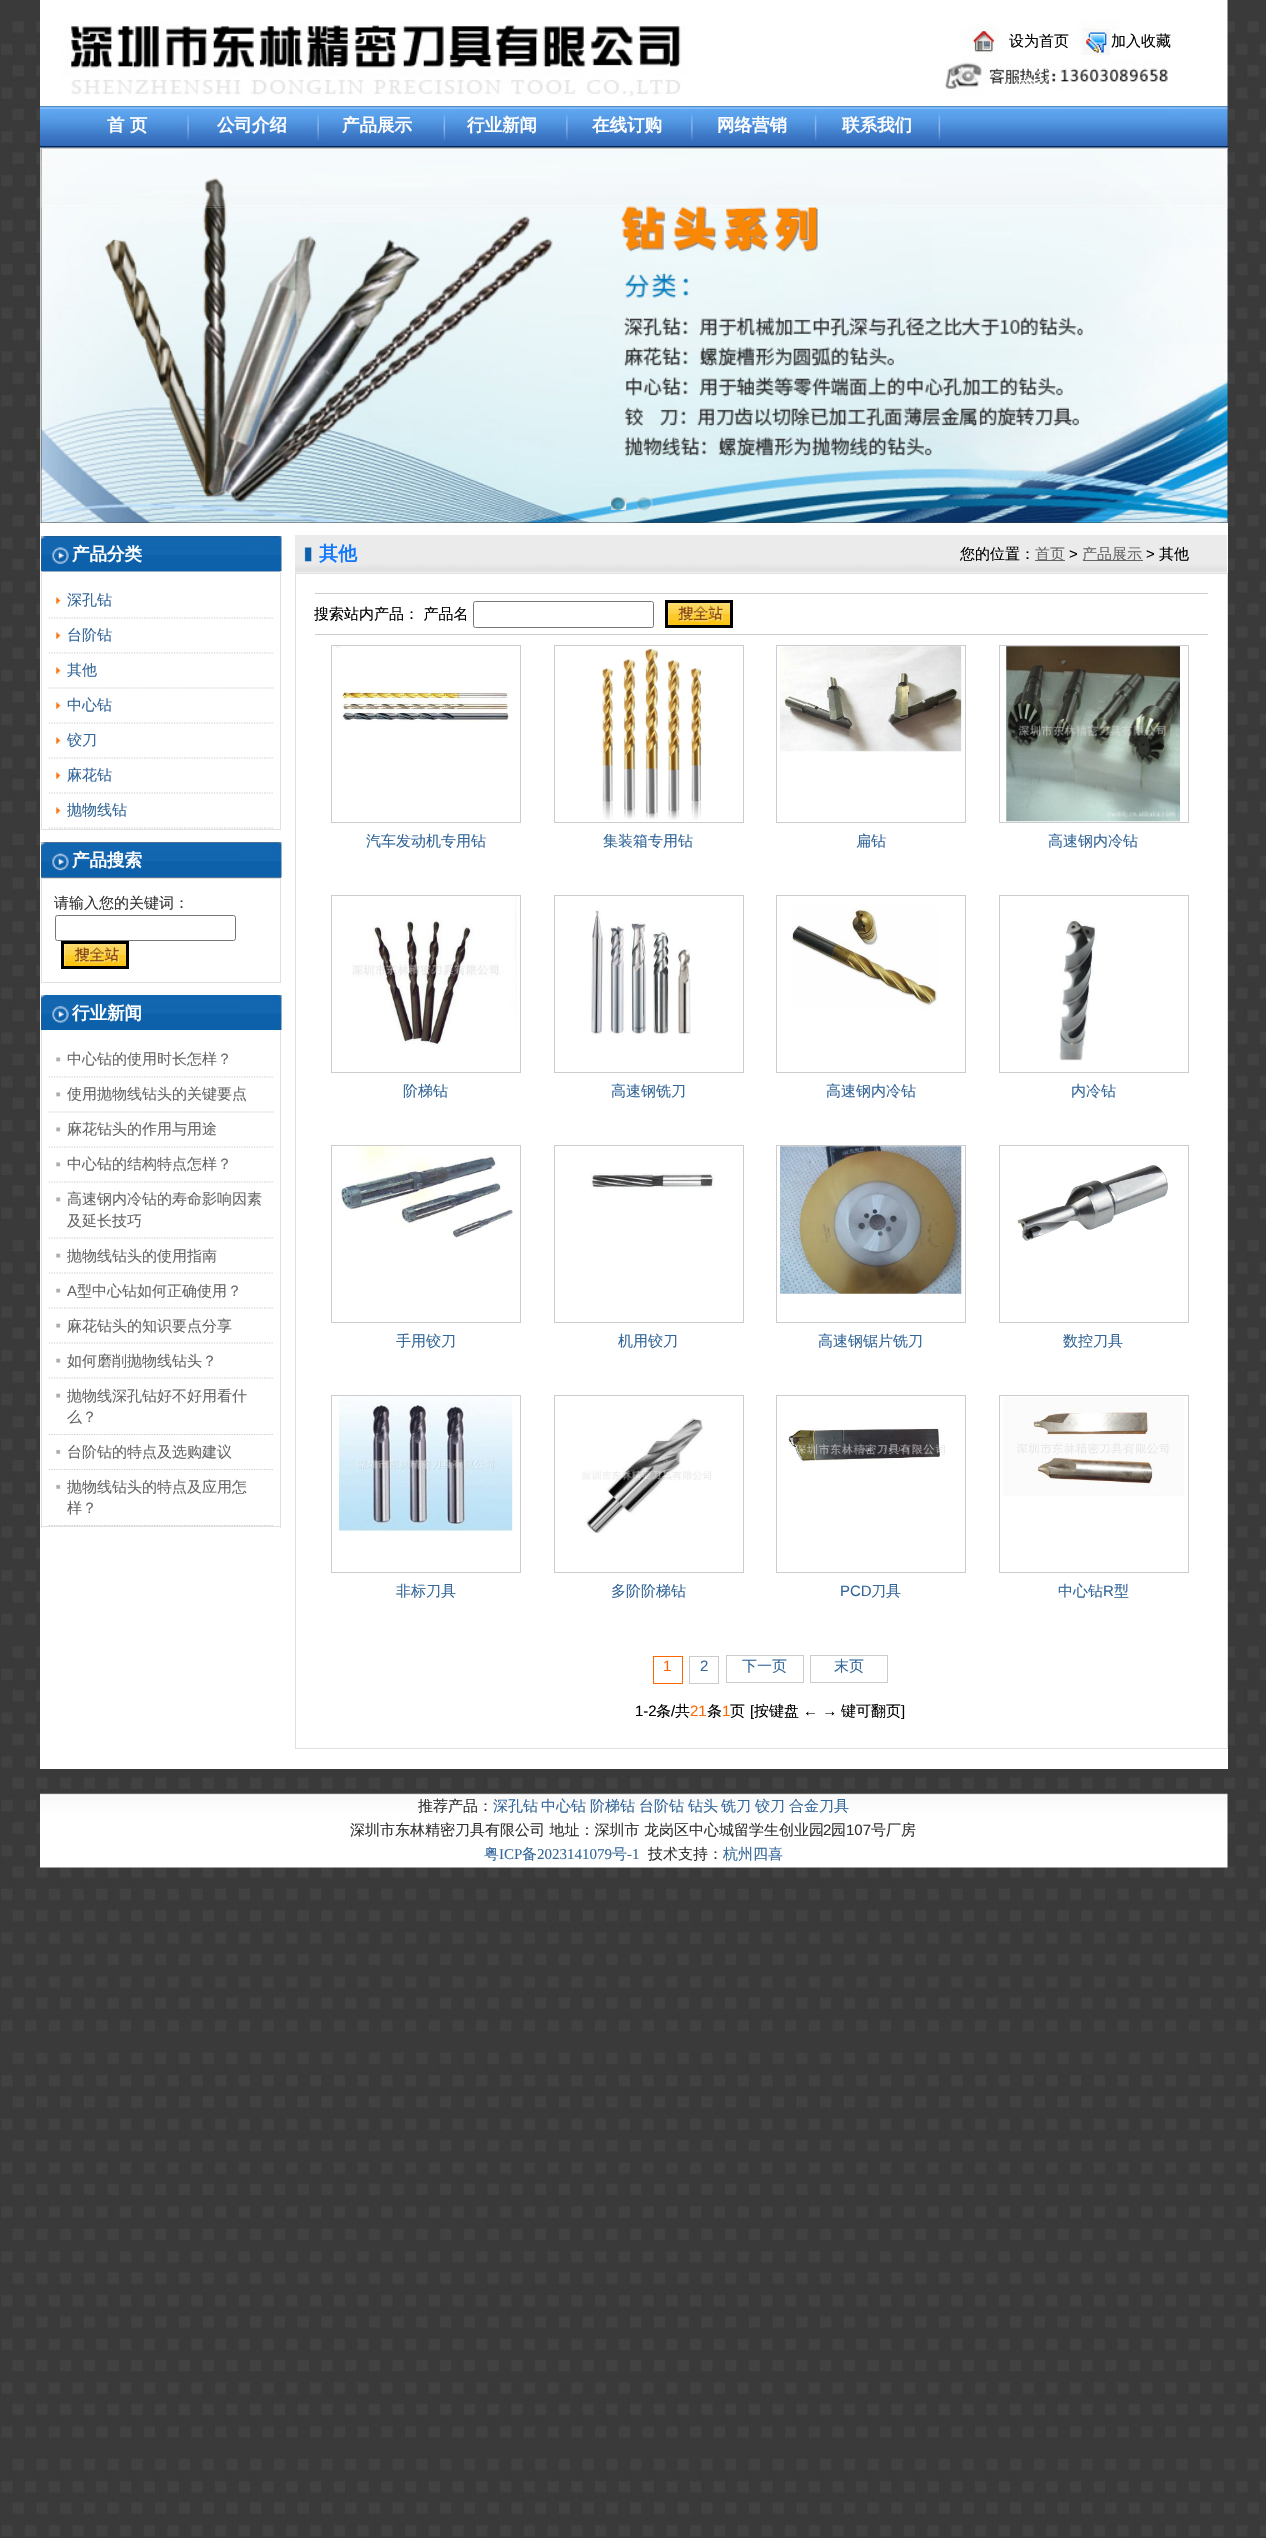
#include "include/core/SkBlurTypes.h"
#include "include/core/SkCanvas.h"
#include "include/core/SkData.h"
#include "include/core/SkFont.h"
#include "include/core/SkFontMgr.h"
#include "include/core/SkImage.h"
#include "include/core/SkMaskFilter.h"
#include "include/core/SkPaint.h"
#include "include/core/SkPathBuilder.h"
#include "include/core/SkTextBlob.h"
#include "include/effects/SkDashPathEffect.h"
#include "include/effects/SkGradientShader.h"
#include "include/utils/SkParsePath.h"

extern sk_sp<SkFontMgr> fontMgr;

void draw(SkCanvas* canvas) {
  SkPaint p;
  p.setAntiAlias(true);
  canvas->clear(SK_ColorWHITE);
  canvas->drawImageRect(SkImages::DeferredFromEncodedData(SkData::MakeFromFileName("images/1.png")), SkRect::MakeLTRB(0, 0, 1266, 2538), SkSamplingOptions());
  canvas->drawImageRect(SkImages::DeferredFromEncodedData(SkData::MakeFromFileName("images/2.png")), SkRect::MakeLTRB(40, 0, 1228, 107), SkSamplingOptions());
  canvas->drawImageRect(SkImages::DeferredFromEncodedData(SkData::MakeFromFileName("images/3.png")), SkRect::MakeLTRB(40, 106, 1228, 148), SkSamplingOptions());
  p.setColor(SkColorSetRGB(0, 37, 83));
  canvas->drawRect(SkRect::MakeLTRB(40, 146, 1228, 147), p);
  p.setColor(SK_ColorWHITE);
  canvas->drawRect(SkRect::MakeLTRB(40, 523, 1228, 1769), p);
  canvas->save();
  canvas->clipRect(SkRect::MakeLTRB(40, 148, 1228, 523));
  p.setStyle(SkPaint::kStroke_Style);
  p.setStrokeWidth(1);
  p.setColor(SkColorSetRGB(204, 204, 204));
  canvas->drawRect(SkRect::MakeLTRB(40.5f, 148.5f, 1229.5f, 524.5f), p);
  canvas->restore();
  canvas->drawImageRect(SkImages::DeferredFromEncodedData(SkData::MakeFromFileName("images/4.png")), SkRect::MakeLTRB(41, 149, 1228, 523), SkSamplingOptions());
  canvas->drawImageRect(SkImages::DeferredFromEncodedData(SkData::MakeFromFileName("images/5.png")), SkRect::MakeLTRB(41, 175, 1228, 207), SkSamplingOptions());
  canvas->save();
  canvas->clipRect(SkRect::MakeLTRB(41, 149, 1228, 523));
  p.setColor(SkColorSetARGB(51, 238, 238, 238));
  canvas->drawRect(SkRect::MakeLTRB(41.5f, 161.5f, 1228.5f, 207.5f), p);
  canvas->restore();
  canvas->drawImageRect(SkImages::DeferredFromEncodedData(SkData::MakeFromFileName("images/6.png")), SkRect::MakeLTRB(611, 497, 627, 510), SkSamplingOptions());
  canvas->drawImageRect(SkImages::DeferredFromEncodedData(SkData::MakeFromFileName("images/7.png")), SkRect::MakeLTRB(637, 497, 653, 510), SkSamplingOptions());
  canvas->drawImageRect(SkImages::DeferredFromEncodedData(SkData::MakeFromFileName("images/8.png")), SkRect::MakeLTRB(41, 536, 282, 572), SkSamplingOptions());
  canvas->drawImageRect(SkImages::DeferredFromEncodedData(SkData::MakeFromFileName("images/9.png")), SkRect::MakeLTRB(41, 536, 282, 572), SkSamplingOptions());
  p.setStyle(SkPaint::kFill_Style);
  p.setColor(SkColorSetRGB(224, 224, 224));
  canvas->drawRect(SkRect::MakeLTRB(280, 571, 281, 830), p);
  canvas->drawRect(SkRect::MakeLTRB(41, 829, 281, 830), p);
  canvas->drawRect(SkRect::MakeLTRB(41, 571, 42, 830), p);
  canvas->drawImageRect(SkImages::DeferredFromEncodedData(SkData::MakeFromFileName("images/10.png")), SkRect::MakeLTRB(55, 596, 62, 605), SkSamplingOptions());
  p.setStyle(SkPaint::kStroke_Style);
  p.setStrokeWidth(1.2f);
  p.setColor(SkColorSetRGB(204, 204, 204));
  p.setPathEffect(SkDashPathEffect::Make({{1.25f, 1.25f}}, 0));
  canvas->drawPath(SkPathBuilder().moveTo(49, 618).lineTo(274, 618).detach(), p);
  p.setPathEffect(nullptr);
  canvas->drawImageRect(SkImages::DeferredFromEncodedData(SkData::MakeFromFileName("images/10.png")), SkRect::MakeLTRB(55, 631, 62, 640), SkSamplingOptions());
  p.setPathEffect(SkDashPathEffect::Make({{1.25f, 1.25f}}, 0));
  canvas->drawPath(SkPathBuilder().moveTo(49, 653).lineTo(274, 653).detach(), p);
  p.setPathEffect(nullptr);
  canvas->drawImageRect(SkImages::DeferredFromEncodedData(SkData::MakeFromFileName("images/10.png")), SkRect::MakeLTRB(55, 666, 62, 675), SkSamplingOptions());
  p.setPathEffect(SkDashPathEffect::Make({{1.25f, 1.25f}}, 0));
  canvas->drawPath(SkPathBuilder().moveTo(49, 688).lineTo(274, 688).detach(), p);
  p.setPathEffect(nullptr);
  canvas->drawImageRect(SkImages::DeferredFromEncodedData(SkData::MakeFromFileName("images/10.png")), SkRect::MakeLTRB(55, 701, 62, 710), SkSamplingOptions());
  p.setPathEffect(SkDashPathEffect::Make({{1.25f, 1.25f}}, 0));
  canvas->drawPath(SkPathBuilder().moveTo(49, 723).lineTo(274, 723).detach(), p);
  p.setPathEffect(nullptr);
  canvas->drawImageRect(SkImages::DeferredFromEncodedData(SkData::MakeFromFileName("images/10.png")), SkRect::MakeLTRB(55, 736, 62, 745), SkSamplingOptions());
  p.setPathEffect(SkDashPathEffect::Make({{1.25f, 1.25f}}, 0));
  canvas->drawPath(SkPathBuilder().moveTo(49, 758).lineTo(274, 758).detach(), p);
  p.setPathEffect(nullptr);
  canvas->drawImageRect(SkImages::DeferredFromEncodedData(SkData::MakeFromFileName("images/10.png")), SkRect::MakeLTRB(55, 771, 62, 780), SkSamplingOptions());
  p.setPathEffect(SkDashPathEffect::Make({{1.25f, 1.25f}}, 0));
  canvas->drawPath(SkPathBuilder().moveTo(49, 793).lineTo(274, 793).detach(), p);
  p.setPathEffect(nullptr);
  canvas->drawImageRect(SkImages::DeferredFromEncodedData(SkData::MakeFromFileName("images/10.png")), SkRect::MakeLTRB(55, 806, 62, 815), SkSamplingOptions());
  p.setPathEffect(SkDashPathEffect::Make({{1.25f, 1.25f}}, 0));
  canvas->drawPath(SkPathBuilder().moveTo(49, 828).lineTo(274, 828).detach(), p);
  p.setPathEffect(nullptr);
  canvas->drawImageRect(SkImages::DeferredFromEncodedData(SkData::MakeFromFileName("images/11.png")), SkRect::MakeLTRB(41, 842, 282, 878), SkSamplingOptions());
  canvas->drawImageRect(SkImages::DeferredFromEncodedData(SkData::MakeFromFileName("images/12.png")), SkRect::MakeLTRB(41, 842, 282, 878), SkSamplingOptions());
  p.setStrokeWidth(1);
  p.setColor(SkColorSetRGB(224, 224, 224));
  canvas->drawRect(SkRect::MakeLTRB(41.5f, 878.5f, 280.5f, 982.5f), p);
  p.setColor(SkColorSetRGB(118, 118, 118));
  canvas->drawRoundRect(SkRect::MakeLTRB(55.5f, 915.5f, 235.5f, 940.5f), 2, 2, p);
  canvas->drawImageRect(SkImages::DeferredFromEncodedData(SkData::MakeFromFileName("images/13.png")), SkRect::MakeLTRB(64, 944, 126, 966), SkSamplingOptions());
  p.setStrokeWidth(3);
  p.setColor(SK_ColorBLACK);
  canvas->drawRect(SkRect::MakeLTRB(62.5f, 942.5f, 127.5f, 967.5f), p);
  canvas->drawImageRect(SkImages::DeferredFromEncodedData(SkData::MakeFromFileName("images/14.png")), SkRect::MakeLTRB(41, 995, 282, 1030), SkSamplingOptions());
  canvas->drawImageRect(SkImages::DeferredFromEncodedData(SkData::MakeFromFileName("images/15.png")), SkRect::MakeLTRB(41, 995, 282, 1030), SkSamplingOptions());
  p.setStyle(SkPaint::kFill_Style);
  p.setColor(SkColorSetRGB(224, 224, 224));
  canvas->drawRect(SkRect::MakeLTRB(280, 1030, 281, 1528), p);
  canvas->drawRect(SkRect::MakeLTRB(41, 1526, 281, 1527), p);
  canvas->drawRect(SkRect::MakeLTRB(41, 1030, 42, 1528), p);
  canvas->drawImageRect(SkImages::DeferredFromEncodedData(SkData::MakeFromFileName("images/16.png")), SkRect::MakeLTRB(56, 1057, 61, 1062), SkSamplingOptions());
  p.setStyle(SkPaint::kStroke_Style);
  p.setStrokeWidth(1.2f);
  p.setColor(SkColorSetRGB(204, 204, 204));
  p.setPathEffect(SkDashPathEffect::Make({{1.25f, 1.25f}}, 0));
  canvas->drawPath(SkPathBuilder().moveTo(49, 1077).lineTo(274, 1077).detach(), p);
  p.setPathEffect(nullptr);
  canvas->drawImageRect(SkImages::DeferredFromEncodedData(SkData::MakeFromFileName("images/16.png")), SkRect::MakeLTRB(56, 1092, 61, 1097), SkSamplingOptions());
  p.setPathEffect(SkDashPathEffect::Make({{1.25f, 1.25f}}, 0));
  canvas->drawPath(SkPathBuilder().moveTo(49, 1112).lineTo(274, 1112).detach(), p);
  p.setPathEffect(nullptr);
  canvas->drawImageRect(SkImages::DeferredFromEncodedData(SkData::MakeFromFileName("images/16.png")), SkRect::MakeLTRB(56, 1127, 61, 1132), SkSamplingOptions());
  p.setPathEffect(SkDashPathEffect::Make({{1.25f, 1.25f}}, 0));
  canvas->drawPath(SkPathBuilder().moveTo(49, 1147).lineTo(274, 1147).detach(), p);
  p.setPathEffect(nullptr);
  canvas->drawImageRect(SkImages::DeferredFromEncodedData(SkData::MakeFromFileName("images/16.png")), SkRect::MakeLTRB(56, 1162, 61, 1167), SkSamplingOptions());
  p.setPathEffect(SkDashPathEffect::Make({{1.25f, 1.25f}}, 0));
  canvas->drawPath(SkPathBuilder().moveTo(49, 1182).lineTo(274, 1182).detach(), p);
  p.setPathEffect(nullptr);
  canvas->drawImageRect(SkImages::DeferredFromEncodedData(SkData::MakeFromFileName("images/16.png")), SkRect::MakeLTRB(56, 1197, 61, 1202), SkSamplingOptions());
  p.setPathEffect(SkDashPathEffect::Make({{1.25f, 1.25f}}, 0));
  canvas->drawPath(SkPathBuilder().moveTo(49, 1238).lineTo(274, 1238).detach(), p);
  p.setPathEffect(nullptr);
  canvas->drawImageRect(SkImages::DeferredFromEncodedData(SkData::MakeFromFileName("images/17.png")), SkRect::MakeLTRB(56, 1253, 61, 1258), SkSamplingOptions());
  p.setPathEffect(SkDashPathEffect::Make({{1.25f, 1.25f}}, 0));
  canvas->drawPath(SkPathBuilder().moveTo(49, 1273).lineTo(274, 1273).detach(), p);
  p.setPathEffect(nullptr);
  canvas->drawImageRect(SkImages::DeferredFromEncodedData(SkData::MakeFromFileName("images/17.png")), SkRect::MakeLTRB(56, 1288, 61, 1293), SkSamplingOptions());
  p.setPathEffect(SkDashPathEffect::Make({{1.25f, 1.25f}}, 0));
  canvas->drawPath(SkPathBuilder().moveTo(49, 1308).lineTo(274, 1308).detach(), p);
  p.setPathEffect(nullptr);
  canvas->drawImageRect(SkImages::DeferredFromEncodedData(SkData::MakeFromFileName("images/17.png")), SkRect::MakeLTRB(56, 1323, 61, 1328), SkSamplingOptions());
  p.setPathEffect(SkDashPathEffect::Make({{1.25f, 1.25f}}, 0));
  canvas->drawPath(SkPathBuilder().moveTo(49, 1343).lineTo(274, 1343).detach(), p);
  p.setPathEffect(nullptr);
  canvas->drawImageRect(SkImages::DeferredFromEncodedData(SkData::MakeFromFileName("images/17.png")), SkRect::MakeLTRB(56, 1358, 61, 1363), SkSamplingOptions());
  p.setPathEffect(SkDashPathEffect::Make({{1.25f, 1.25f}}, 0));
  canvas->drawPath(SkPathBuilder().moveTo(49, 1378).lineTo(274, 1378).detach(), p);
  p.setPathEffect(nullptr);
  canvas->drawImageRect(SkImages::DeferredFromEncodedData(SkData::MakeFromFileName("images/17.png")), SkRect::MakeLTRB(56, 1393, 61, 1398), SkSamplingOptions());
  p.setPathEffect(SkDashPathEffect::Make({{1.25f, 1.25f}}, 0));
  canvas->drawPath(SkPathBuilder().moveTo(49, 1434.5f).lineTo(274, 1434.5f).detach(), p);
  p.setPathEffect(nullptr);
  canvas->drawImageRect(SkImages::DeferredFromEncodedData(SkData::MakeFromFileName("images/18.png")), SkRect::MakeLTRB(56, 1449, 61, 1454), SkSamplingOptions());
  p.setPathEffect(SkDashPathEffect::Make({{1.25f, 1.25f}}, 0));
  canvas->drawPath(SkPathBuilder().moveTo(49, 1469.5f).lineTo(274, 1469.5f).detach(), p);
  p.setPathEffect(nullptr);
  canvas->drawImageRect(SkImages::DeferredFromEncodedData(SkData::MakeFromFileName("images/18.png")), SkRect::MakeLTRB(56, 1484, 61, 1489), SkSamplingOptions());
  p.setPathEffect(SkDashPathEffect::Make({{1.25f, 1.25f}}, 0));
  canvas->drawPath(SkPathBuilder().moveTo(49, 1525.5f).lineTo(274, 1525.5f).detach(), p);
  p.setPathEffect(nullptr);
  canvas->drawImageRect(SkImages::DeferredFromEncodedData(SkData::MakeFromFileName("images/19.png")), SkRect::MakeLTRB(295, 535, 1228, 573), SkSamplingOptions());
  p.setStyle(SkPaint::kFill_Style);
  p.setColor(SkColorSetRGB(102, 102, 102));
  canvas->drawRect(SkRect::MakeLTRB(1035, 560, 1065, 561), p);
  canvas->drawRect(SkRect::MakeLTRB(1083, 560, 1143, 561), p);
  p.setStyle(SkPaint::kStroke_Style);
  p.setStrokeWidth(1);
  p.setColor(SkColorSetRGB(224, 224, 224));
  canvas->drawRect(SkRect::MakeLTRB(295.5f, 573.5f, 1227.5f, 1748.5f), p);
  p.setStyle(SkPaint::kFill_Style);
  p.setColor(SkColorSetRGB(204, 204, 204));
  canvas->drawRect(SkRect::MakeLTRB(315, 593, 1208, 594), p);
  canvas->drawRect(SkRect::MakeLTRB(315, 634, 1208, 635), p);
  p.setStyle(SkPaint::kStroke_Style);
  p.setColor(SkColorSetRGB(118, 118, 118));
  canvas->drawRoundRect(SkRect::MakeLTRB(473.5f, 601.5f, 653.5f, 627.5f), 2, 2, p);
  canvas->drawImageRect(SkImages::DeferredFromEncodedData(SkData::MakeFromFileName("images/20.png")), SkRect::MakeLTRB(668, 603, 730, 625), SkSamplingOptions());
  p.setStrokeWidth(3);
  p.setColor(SK_ColorBLACK);
  canvas->drawRect(SkRect::MakeLTRB(666.5f, 601.5f, 731.5f, 626.5f), p);
  p.setStrokeWidth(1);
  p.setColor(SkColorSetRGB(204, 204, 204));
  canvas->drawRect(SkRect::MakeLTRB(331.5f, 645.5f, 520.5f, 822.5f), p);
  canvas->drawImageRect(SkImages::DeferredFromEncodedData(SkData::MakeFromFileName("images/21.png")), SkRect::MakeLTRB(336, 646, 510, 722), SkSamplingOptions());
  canvas->drawRect(SkRect::MakeLTRB(554.5f, 645.5f, 743.5f, 822.5f), p);
  canvas->drawImageRect(SkImages::DeferredFromEncodedData(SkData::MakeFromFileName("images/22.png")), SkRect::MakeLTRB(602, 647, 702, 820), SkSamplingOptions());
  canvas->drawRect(SkRect::MakeLTRB(776.5f, 645.5f, 965.5f, 822.5f), p);
  canvas->drawImageRect(SkImages::DeferredFromEncodedData(SkData::MakeFromFileName("images/23.png")), SkRect::MakeLTRB(780, 646, 962, 752), SkSamplingOptions());
  canvas->drawRect(SkRect::MakeLTRB(999.5f, 645.5f, 1188.5f, 822.5f), p);
  canvas->drawImageRect(SkImages::DeferredFromEncodedData(SkData::MakeFromFileName("images/24.png")), SkRect::MakeLTRB(1006, 646, 1180, 822), SkSamplingOptions());
  canvas->drawRect(SkRect::MakeLTRB(331.5f, 895.5f, 520.5f, 1072.5f), p);
  canvas->drawImageRect(SkImages::DeferredFromEncodedData(SkData::MakeFromFileName("images/25.png")), SkRect::MakeLTRB(352, 896, 517, 1045), SkSamplingOptions());
  canvas->drawRect(SkRect::MakeLTRB(554.5f, 895.5f, 743.5f, 1072.5f), p);
  canvas->drawImageRect(SkImages::DeferredFromEncodedData(SkData::MakeFromFileName("images/26.png")), SkRect::MakeLTRB(591, 910, 691, 1036), SkSamplingOptions());
  canvas->drawRect(SkRect::MakeLTRB(776.5f, 895.5f, 965.5f, 1072.5f), p);
  canvas->drawImageRect(SkImages::DeferredFromEncodedData(SkData::MakeFromFileName("images/27.png")), SkRect::MakeLTRB(791, 906, 938, 1010), SkSamplingOptions());
  canvas->drawRect(SkRect::MakeLTRB(999.5f, 895.5f, 1188.5f, 1072.5f), p);
  canvas->drawImageRect(SkImages::DeferredFromEncodedData(SkData::MakeFromFileName("images/28.png")), SkRect::MakeLTRB(1059, 919, 1097, 1061), SkSamplingOptions());
  canvas->drawRect(SkRect::MakeLTRB(331.5f, 1145.5f, 520.5f, 1322.5f), p);
  canvas->drawImageRect(SkImages::DeferredFromEncodedData(SkData::MakeFromFileName("images/29.png")), SkRect::MakeLTRB(341, 1146, 513, 1238), SkSamplingOptions());
  canvas->drawRect(SkRect::MakeLTRB(554.5f, 1145.5f, 743.5f, 1322.5f), p);
  canvas->drawImageRect(SkImages::DeferredFromEncodedData(SkData::MakeFromFileName("images/30.png")), SkRect::MakeLTRB(590, 1173, 715, 1189), SkSamplingOptions());
  canvas->drawRect(SkRect::MakeLTRB(776.5f, 1145.5f, 965.5f, 1322.5f), p);
  canvas->drawImageRect(SkImages::DeferredFromEncodedData(SkData::MakeFromFileName("images/31.png")), SkRect::MakeLTRB(780, 1146, 962, 1294), SkSamplingOptions());
  canvas->drawRect(SkRect::MakeLTRB(999.5f, 1145.5f, 1188.5f, 1322.5f), p);
  canvas->drawImageRect(SkImages::DeferredFromEncodedData(SkData::MakeFromFileName("images/32.png")), SkRect::MakeLTRB(1017, 1165, 1168, 1241), SkSamplingOptions());
  canvas->drawRect(SkRect::MakeLTRB(331.5f, 1395.5f, 520.5f, 1572.5f), p);
  canvas->drawImageRect(SkImages::DeferredFromEncodedData(SkData::MakeFromFileName("images/33.png")), SkRect::MakeLTRB(335, 1396, 513, 1532), SkSamplingOptions());
  canvas->drawRect(SkRect::MakeLTRB(554.5f, 1395.5f, 743.5f, 1572.5f), p);
  canvas->drawImageRect(SkImages::DeferredFromEncodedData(SkData::MakeFromFileName("images/34.png")), SkRect::MakeLTRB(582, 1418, 711, 1533), SkSamplingOptions());
  canvas->drawRect(SkRect::MakeLTRB(776.5f, 1395.5f, 965.5f, 1572.5f), p);
  canvas->drawImageRect(SkImages::DeferredFromEncodedData(SkData::MakeFromFileName("images/35.png")), SkRect::MakeLTRB(788, 1428, 945, 1462), SkSamplingOptions());
  canvas->drawRect(SkRect::MakeLTRB(999.5f, 1395.5f, 1188.5f, 1572.5f), p);
  canvas->drawImageRect(SkImages::DeferredFromEncodedData(SkData::MakeFromFileName("images/36.png")), SkRect::MakeLTRB(1003, 1397, 1184, 1496), SkSamplingOptions());
  p.setColor(SkColorSetRGB(255, 102, 0));
  canvas->drawRect(SkRect::MakeLTRB(653.5f, 1656.5f, 682.5f, 1683.5f), p);
  p.setColor(SkColorSetRGB(204, 204, 204));
  canvas->drawRect(SkRect::MakeLTRB(689.5f, 1656.5f, 718.5f, 1683.5f), p);
  canvas->drawRect(SkRect::MakeLTRB(726.5f, 1655.5f, 803.5f, 1682.5f), p);
  canvas->drawRect(SkRect::MakeLTRB(810.5f, 1655.5f, 887.5f, 1682.5f), p);
  canvas->drawImageRect(SkImages::DeferredFromEncodedData(SkData::MakeFromFileName("images/37.png")), SkRect::MakeLTRB(40, 1793, 1228, 1868), SkSamplingOptions());
  SkFont font1(fontMgr->matchFamilyStyle("WenQuanYi Zen Hei", SkFontStyle(500, SkFontStyle::kNormal_Width, SkFontStyle::kUpright_Slant)), 15);
  font1.setSubpixel(true);
  p.setStyle(SkPaint::kFill_Style);
  p.setColor(SK_ColorBLACK);
  canvas->drawString("设为首页", 1009, 46, font1, p);
  canvas->drawString("加入收藏", 1111, 46, font1, p);
  SkFont font2(fontMgr->matchFamilyStyle("WenQuanYi Zen Hei", SkFontStyle::Bold()), 17.5f);
  font2.setSubpixel(true);
  p.setColor(SK_ColorWHITE);
  canvas->drawString("首 页", 107, 131, font2, p);
  canvas->drawString("公司介绍", 217, 131, font2, p);
  canvas->drawString("产品展示", 342, 131, font2, p);
  canvas->drawString("行业新闻", 467, 131, font2, p);
  canvas->drawString("在线订购", 592, 131, font2, p);
  canvas->drawString("网络营销", 717, 131, font2, p);
  canvas->drawString("联系我们", 842, 131, font2, p);
  canvas->drawString("产品分类", 72, 560, font2, p);
  p.setColor(SkColorSetRGB(51, 102, 153));
  canvas->drawString("深孔钻", 67, 605, font1, p);
  canvas->drawString("台阶钻", 67, 640, font1, p);
  canvas->drawString("其他", 67, 675, font1, p);
  canvas->drawString("中心钻", 67, 710, font1, p);
  canvas->drawString("铰刀", 67, 745, font1, p);
  canvas->drawString("麻花钻", 67, 780, font1, p);
  canvas->drawString("抛物线钻", 67, 815, font1, p);
  p.setColor(SK_ColorWHITE);
  canvas->drawString("产品搜索", 72, 866, font2, p);
  p.setColor(SkColorSetRGB(51, 51, 51));
  canvas->drawString("请输入您的关键词：", 54, 908, font1, p);
  p.setColor(SK_ColorWHITE);
  canvas->drawString("行业新闻", 72, 1019, font2, p);
  p.setColor(SkColorSetRGB(102, 102, 102));
  canvas->drawString("中心钻的使用时长怎样？", 67, 1064, font1, p);
  canvas->drawString("使用抛物线钻头的关键要点", 67, 1099, font1, p);
  canvas->drawString("麻花钻头的作用与用途", 67, 1134, font1, p);
  canvas->drawString("中心钻的结构特点怎样？", 67, 1169, font1, p);
  canvas->drawString("高速钢内冷钻的寿命影响因素", 67, 1204, font1, p);
  canvas->drawString("及延长技巧", 67, 1226, font1, p);
  canvas->drawString("抛物线钻头的使用指南", 67, 1261, font1, p);
  SkFont font3(fontMgr->matchFamilyStyle("Liberation Sans", SkFontStyle::Normal()), 15);
  font3.setSubpixel(true);
  canvas->drawString("A", 67, 1296, font3, p);
  canvas->drawString("型中心钻如何正确使用？", 77, 1296, font1, p);
  canvas->drawString("麻花钻头的知识要点分享", 67, 1331, font1, p);
  canvas->drawString("如何磨削抛物线钻头？", 67, 1366, font1, p);
  canvas->drawString("抛物线深孔钻好不好用看什", 67, 1401, font1, p);
  canvas->drawString("么？", 67, 1422, font1, p);
  canvas->drawString("台阶钻的特点及选购建议", 67, 1457, font1, p);
  canvas->drawString("抛物线钻头的特点及应用怎", 67, 1492, font1, p);
  canvas->drawString("样？", 67, 1513, font1, p);
  SkFont font4(fontMgr->matchFamilyStyle("WenQuanYi Zen Hei", SkFontStyle::Bold()), 19);
  font4.setSubpixel(true);
  p.setColor(SkColorSetRGB(19, 120, 254));
  canvas->drawString("其他", 319, 560, font4, p);
  p.setColor(SK_ColorBLACK);
  canvas->drawString("您的位置：", 960, 559, font1, p);
  p.setColor(SkColorSetRGB(102, 102, 102));
  canvas->drawString("首页", 1035, 559, font1, p);
  p.setColor(SK_ColorBLACK);
  canvas->drawString(">", 1069, 559, font3, p);
  p.setColor(SkColorSetRGB(102, 102, 102));
  canvas->drawString("产品展示", 1082, 559, font1, p);
  p.setColor(SK_ColorBLACK);
  canvas->drawString(">", 1146, 559, font3, p);
  canvas->drawString("其他", 1159, 559, font1, p);
  canvas->drawString("搜索站内产品： 产品名", 314, 619, font1, p);
  p.setColor(SkColorSetRGB(51, 102, 153));
  canvas->drawString("汽车发动机专用钻", 366, 846, font1, p);
  canvas->drawString("集装箱专用钻", 603, 846, font1, p);
  canvas->drawString("扁钻", 856, 846, font1, p);
  canvas->drawString("高速钢内冷钻", 1048, 846, font1, p);
  canvas->drawString("阶梯钻", 403, 1096, font1, p);
  canvas->drawString("高速钢铣刀", 611, 1096, font1, p);
  canvas->drawString("高速钢内冷钻", 826, 1096, font1, p);
  canvas->drawString("内冷钻", 1071, 1096, font1, p);
  canvas->drawString("手用铰刀", 396, 1346, font1, p);
  canvas->drawString("机用铰刀", 618, 1346, font1, p);
  canvas->drawString("高速钢锯片铣刀", 818, 1346, font1, p);
  canvas->drawString("数控刀具", 1063, 1346, font1, p);
  canvas->drawString("非标刀具", 396, 1596, font1, p);
  canvas->drawString("多阶阶梯钻", 611, 1596, font1, p);
  canvas->drawString("PCD", 840, 1596, font3, p);
  canvas->drawString("刀具", 871, 1596, font1, p);
  canvas->drawString("中心钻", 1058, 1596, font1, p);
  canvas->drawString("R", 1103, 1596, font3, p);
  canvas->drawString("型", 1114, 1596, font1, p);
  p.setColor(SkColorSetRGB(255, 102, 0));
  canvas->drawString("1", 663, 1671, font3, p);
  p.setColor(SkColorSetRGB(51, 102, 153));
  canvas->drawString("2", 700, 1671, font3, p);
  canvas->drawString("下一页", 742, 1671, font1, p);
  canvas->drawString("末页", 834, 1671, font1, p);
  p.setColor(SK_ColorBLACK);
  canvas->drawString("1-2", 635, 1716, font3, p);
  canvas->drawString("条", 656, 1716, font1, p);
  canvas->drawString("/", 671, 1716, font3, p);
  canvas->drawString("共", 675, 1716, font1, p);
  p.setColor(SkColorSetRGB(255, 102, 0));
  canvas->drawString("21", 690, 1716, font3, p);
  p.setColor(SK_ColorBLACK);
  canvas->drawString("条", 707, 1716, font1, p);
  p.setColor(SkColorSetRGB(255, 102, 0));
  canvas->drawString("1", 722, 1716, font3, p);
  p.setColor(SK_ColorBLACK);
  canvas->drawString("页", 730, 1716, font1, p);
  canvas->drawString("[", 750, 1716, font3, p);
  canvas->drawString("按键盘", 754, 1716, font1, p);
  canvas->drawString("← →", 803, 1716, font3, p);
  canvas->drawString("键可翻页", 841, 1716, font1, p);
  canvas->drawString("]", 901, 1716, font3, p);
  p.setColor(SkColorSetRGB(51, 51, 51));
  canvas->drawString("推荐产品：", 418, 1811, font1, p);
  p.setColor(SkColorSetRGB(51, 102, 153));
  canvas->drawString("深孔钻", 493, 1811, font1, p);
  canvas->drawString("中心钻", 541, 1811, font1, p);
  canvas->drawString("阶梯钻", 590, 1811, font1, p);
  canvas->drawString("台阶钻", 639, 1811, font1, p);
  canvas->drawString("钻头", 688, 1811, font1, p);
  canvas->drawString("铣刀", 721, 1811, font1, p);
  canvas->drawString("铰刀", 755, 1811, font1, p);
  canvas->drawString("合金刀具", 789, 1811, font1, p);
  p.setColor(SkColorSetRGB(51, 51, 51));
  canvas->drawString("深圳市东林精密刀具有限公司 地址：深圳市 龙岗区中心城留学生创业园", 350, 1835, font1, p);
  canvas->drawString("2", 823, 1835, font3, p);
  canvas->drawString("园", 831, 1835, font1, p);
  canvas->drawString("107", 846, 1835, font3, p);
  canvas->drawString("号厂房", 871, 1835, font1, p);
  p.setColor(SkColorSetRGB(51, 102, 153));
  canvas->drawString("粤", 484, 1859, font1, p);
  SkFont font5(fontMgr->matchFamilyStyle("Liberation Serif", SkFontStyle::Normal()), 15);
  font5.setSubpixel(true);
  canvas->drawString("ICP", 499, 1859, font5, p);
  canvas->drawString("备", 522, 1859, font1, p);
  canvas->drawString("2023141079", 537, 1859, font5, p);
  canvas->drawString("号", 612, 1859, font1, p);
  canvas->drawString("-1", 627, 1859, font5, p);
  p.setColor(SkColorSetRGB(51, 51, 51));
  canvas->drawString("技术支持：", 648, 1859, font1, p);
  p.setColor(SkColorSetRGB(51, 102, 153));
  canvas->drawString("杭州四喜", 723, 1859, font1, p);
}
